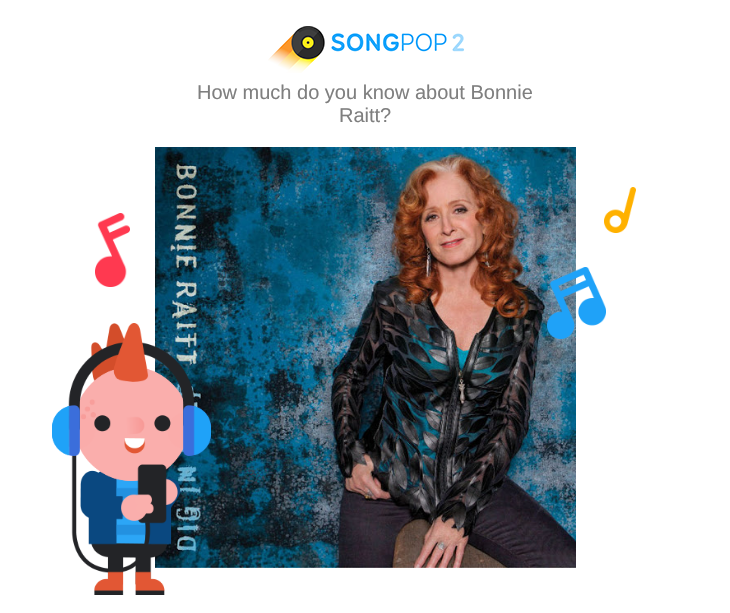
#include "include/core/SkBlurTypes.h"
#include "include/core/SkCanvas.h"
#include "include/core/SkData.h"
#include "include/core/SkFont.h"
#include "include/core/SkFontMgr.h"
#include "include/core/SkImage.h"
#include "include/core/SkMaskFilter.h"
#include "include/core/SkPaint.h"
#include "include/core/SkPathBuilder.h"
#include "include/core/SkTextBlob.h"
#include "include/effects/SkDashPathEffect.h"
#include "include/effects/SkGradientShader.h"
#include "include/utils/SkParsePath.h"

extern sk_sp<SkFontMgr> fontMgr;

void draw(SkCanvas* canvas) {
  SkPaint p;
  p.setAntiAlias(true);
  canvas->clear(SK_ColorWHITE);
  canvas->drawImageRect(SkImages::DeferredFromEncodedData(SkData::MakeFromFileName("images/1.png")), SkRect::MakeLTRB(268, 26, 464, 73), SkSamplingOptions());
  canvas->drawImageRect(SkImages::DeferredFromEncodedData(SkData::MakeFromFileName("images/2.png")), SkRect::MakeLTRB(95, 213, 130, 287), SkSamplingOptions());
  canvas->drawImageRect(SkImages::DeferredFromEncodedData(SkData::MakeFromFileName("images/3.png")), SkRect::MakeLTRB(155, 147, 576, 568), SkSamplingOptions());
  canvas->drawImageRect(SkImages::DeferredFromEncodedData(SkData::MakeFromFileName("images/4.png")), SkRect::MakeLTRB(604, 187, 636, 233), SkSamplingOptions());
  canvas->drawImageRect(SkImages::DeferredFromEncodedData(SkData::MakeFromFileName("images/5.png")), SkRect::MakeLTRB(547, 267, 606, 339), SkSamplingOptions());
  canvas->drawImageRect(SkImages::DeferredFromEncodedData(SkData::MakeFromFileName("images/6.png")), SkRect::MakeLTRB(52, 323, 211, 595), SkSamplingOptions());
  SkFont font1(fontMgr->matchFamilyStyle("Liberation Sans", SkFontStyle::Normal()), 20);
  font1.setSubpixel(true);
  p.setColor(SkColorSetRGB(127, 127, 127));
  canvas->drawString("How much do you know about Bonnie", 197, 99, font1, p);
  canvas->drawString("Raitt?", 339, 122, font1, p);
}
